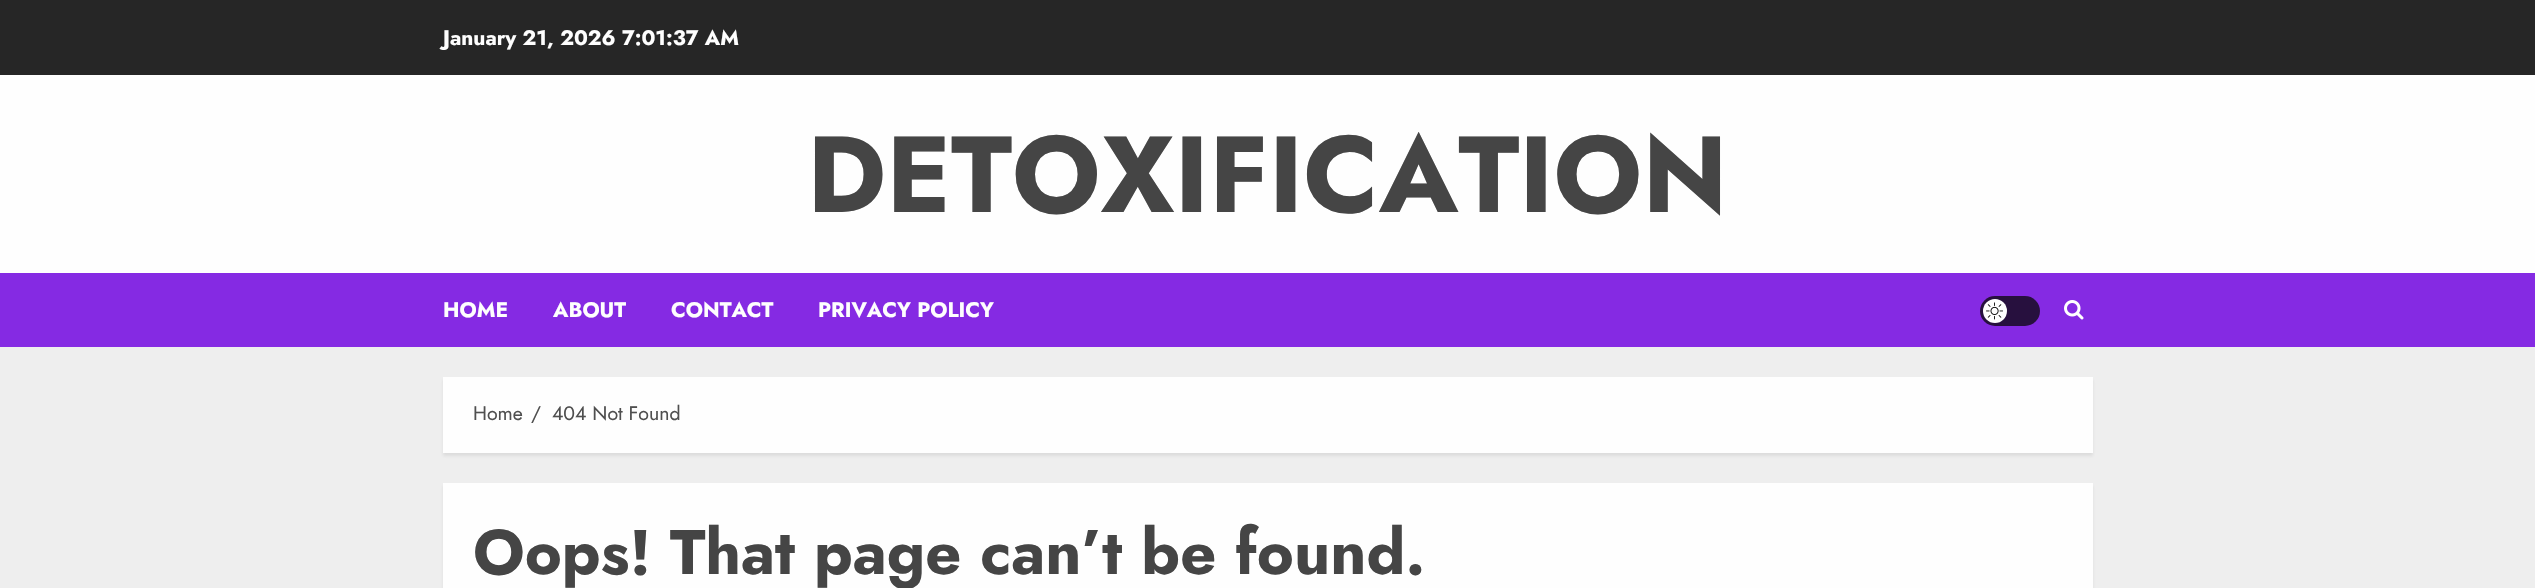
#include "include/core/SkBlurTypes.h"
#include "include/core/SkCanvas.h"
#include "include/core/SkData.h"
#include "include/core/SkFont.h"
#include "include/core/SkFontMgr.h"
#include "include/core/SkImage.h"
#include "include/core/SkMaskFilter.h"
#include "include/core/SkPaint.h"
#include "include/core/SkPathBuilder.h"
#include "include/core/SkTextBlob.h"
#include "include/effects/SkDashPathEffect.h"
#include "include/effects/SkGradientShader.h"
#include "include/utils/SkParsePath.h"

extern sk_sp<SkFontMgr> fontMgr;

void draw(SkCanvas* canvas) {
  SkPaint p;
  p.setAntiAlias(true);
  canvas->clear(SkColorSetRGB(238, 238, 238));
  p.setColor(SkColorSetRGB(38, 38, 38));
  canvas->drawRect(SkRect::MakeLTRB(0, 0, 2535, 75), p);
  p.setColor(SkColorSetRGB(254, 254, 254));
  canvas->drawRect(SkRect::MakeLTRB(0, 75, 2535, 273), p);
  p.setColor(SkColorSetRGB(133, 42, 227));
  canvas->drawRect(SkRect::MakeLTRB(0, 273, 2535, 347), p);
  p.setColor(SkColorSetRGB(39, 16, 62));
  canvas->drawRoundRect(SkRect::MakeLTRB(1980, 296, 2040, 326), 15, 15, p);
  p.setColor(SkColorSetRGB(254, 254, 254));
  canvas->drawCircle(1995, 311, 12, p);
  canvas->drawImageRect(SkImages::DeferredFromEncodedData(SkData::MakeFromFileName("images/1.png")), SkRect::MakeLTRB(1986, 302, 2003, 320), SkSamplingOptions());
  canvas->drawImageRect(SkImages::DeferredFromEncodedData(SkData::MakeFromFileName("images/2.png")), SkRect::MakeLTRB(2064, 300, 2084, 320), SkSamplingOptions());
  p.setColor(SkColorSetARGB(20, 7, 7, 7));
  p.setMaskFilter(SkMaskFilter::MakeBlur(kNormal_SkBlurStyle, 1.5f));
  canvas->drawRect(SkRect::MakeLTRB(443, 380, 2093, 456), p);
  p.setMaskFilter(nullptr);
  p.setColor(SkColorSetRGB(254, 254, 254));
  canvas->drawRect(SkRect::MakeLTRB(443, 377, 2093, 453), p);
  p.setColor(SkColorSetARGB(20, 7, 7, 7));
  p.setMaskFilter(SkMaskFilter::MakeBlur(kNormal_SkBlurStyle, 1.5f));
  canvas->drawRect(SkRect::MakeLTRB(443, 486, 2093, 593), p);
  p.setMaskFilter(nullptr);
  p.setColor(SkColorSetRGB(254, 254, 254));
  canvas->drawRect(SkRect::MakeLTRB(443, 483, 2093, 588), p);
  SkFont font1(fontMgr->matchFamilyStyle("Jost", SkFontStyle::Bold()), 21);
  font1.setSubpixel(true);
  canvas->drawString("January 21, 2026 7:01:37 AM", 443, 45, font1, p);
  SkFont font2(fontMgr->matchFamilyStyle("Jost", SkFontStyle::Bold()), 108);
  font2.setSubpixel(true);
  p.setColor(SkColorSetRGB(69, 69, 69));
  canvas->drawString("DETOXIFICATION", 807, 212, font2, p);
  p.setColor(SkColorSetRGB(254, 254, 254));
  canvas->drawString("HOME", 443, 317, font1, p);
  canvas->drawString("ABOUT", 553, 317, font1, p);
  canvas->drawString("CONTACT", 671, 317, font1, p);
  canvas->drawString("PRIVACY POLICY", 818, 317, font1, p);
  SkFont font3(fontMgr->matchFamilyStyle("Jost", SkFontStyle::Normal()), 19.5f);
  font3.setSubpixel(true);
  p.setColor(SkColorSetRGB(79, 79, 79));
  canvas->drawString("Home", 473, 420, font3, p);
  canvas->drawString("/", 531, 420, font3, p);
  canvas->drawString("404 Not Found", 552, 420, font3, p);
  SkFont font4(fontMgr->matchFamilyStyle("Jost", SkFontStyle::Bold()), 63);
  font4.setSubpixel(true);
  p.setColor(SkColorSetRGB(69, 69, 69));
  canvas->drawString("Oops! That page can’t be found.", 473, 574, font4, p);
}
